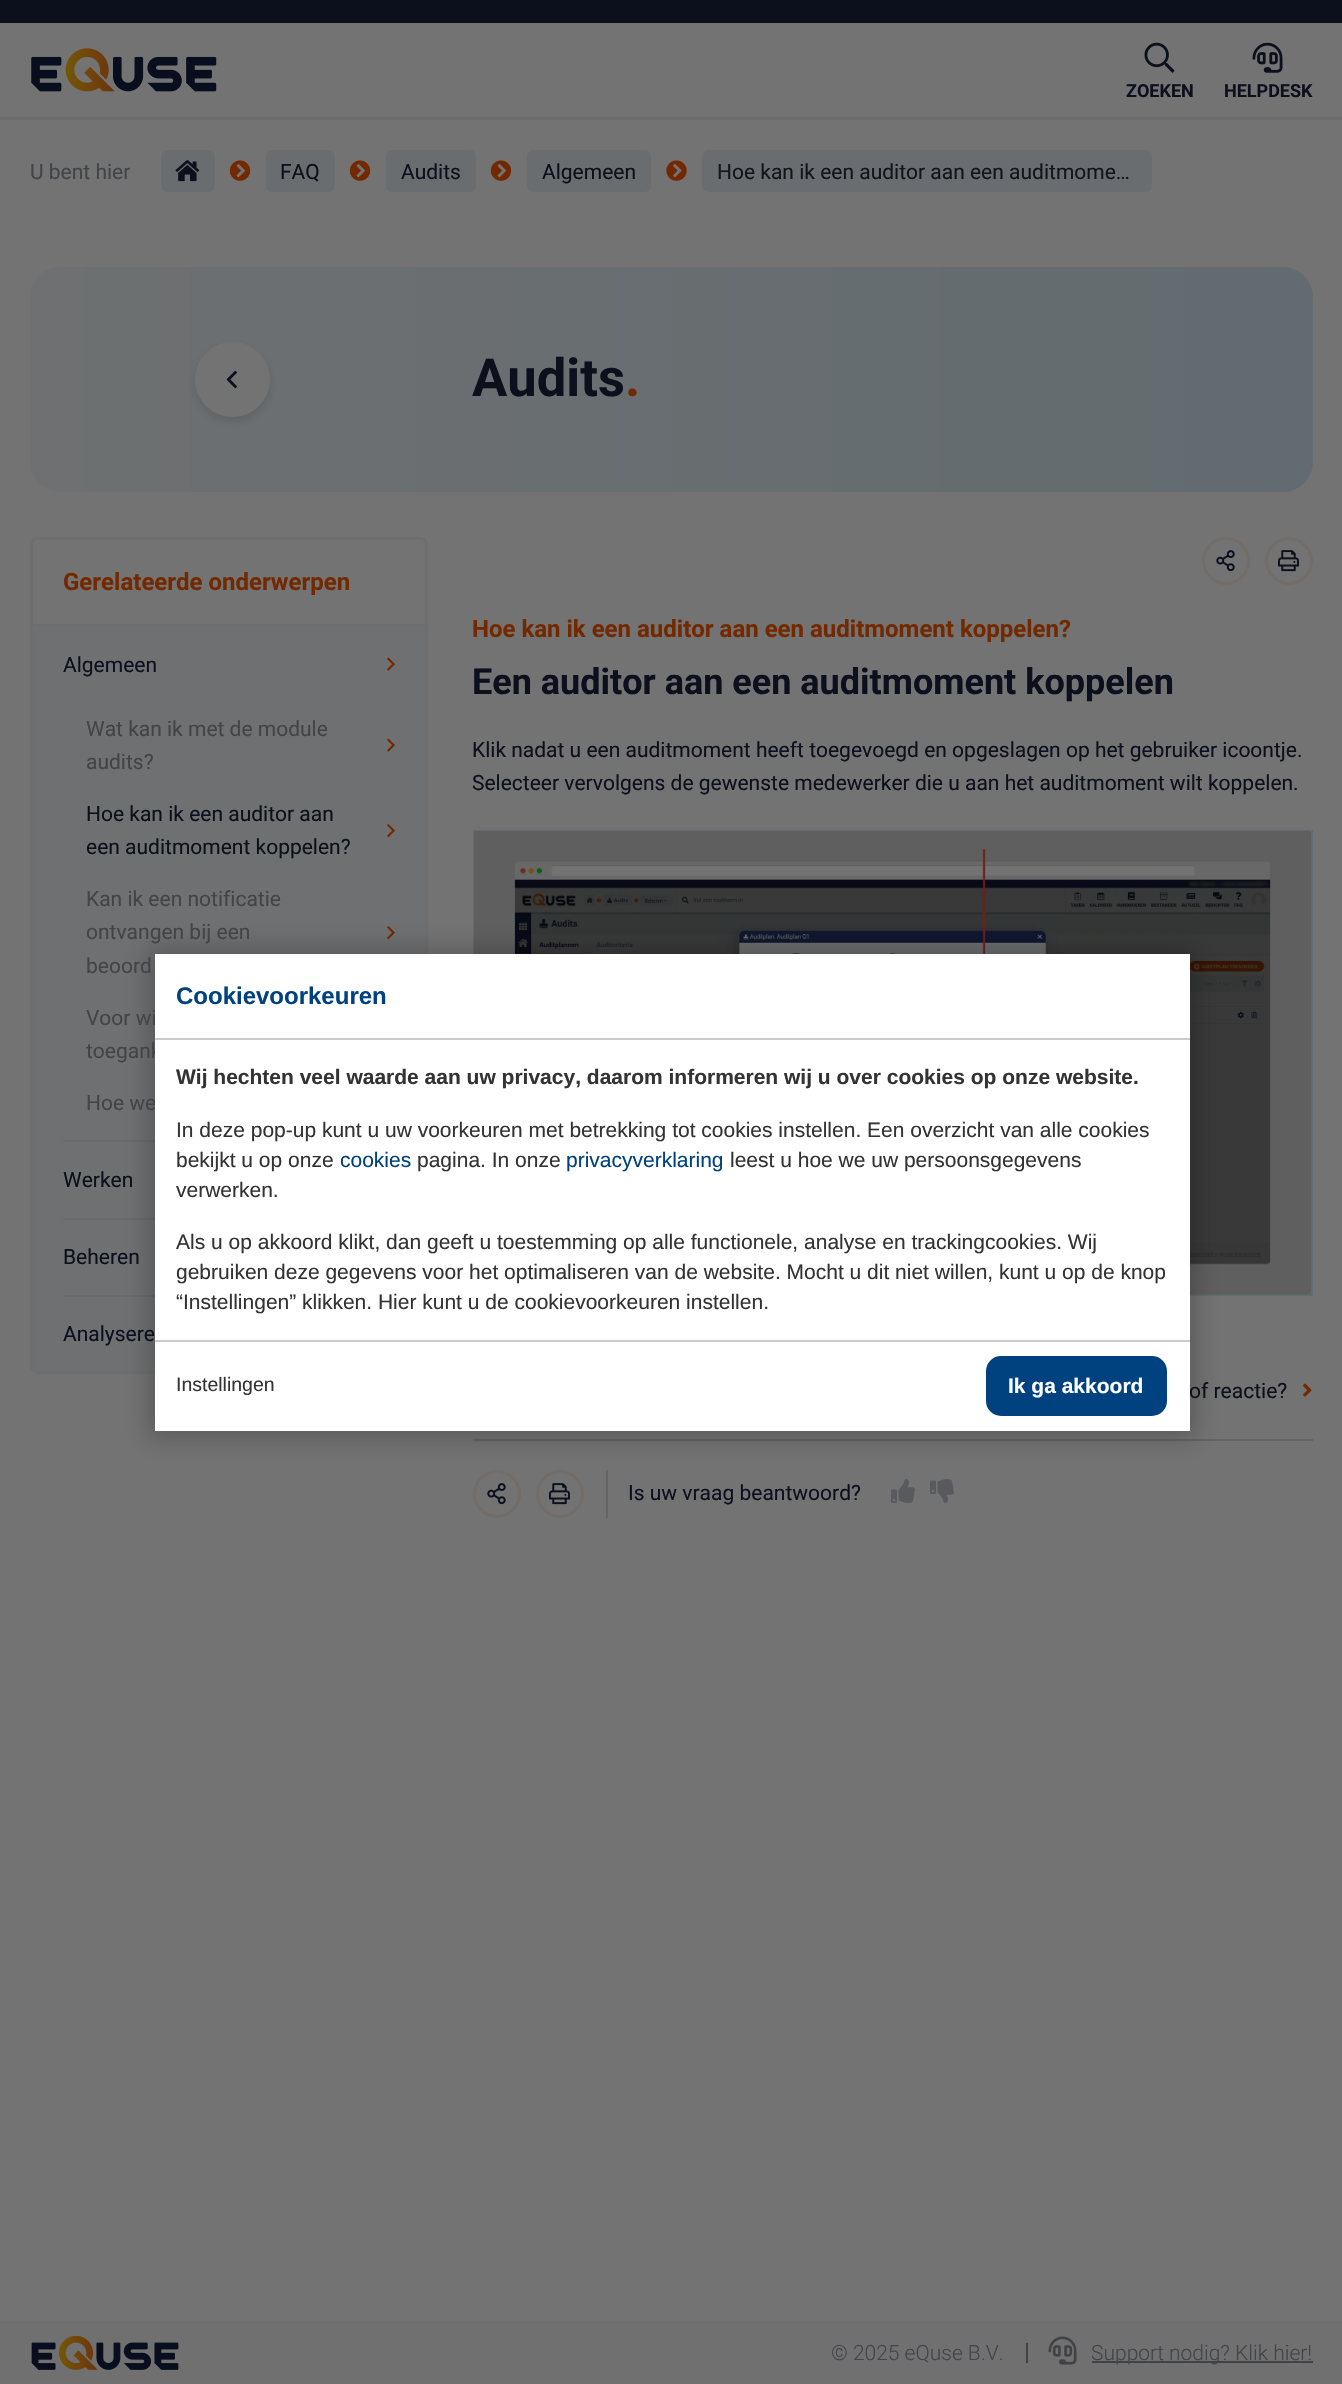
#include "include/core/SkBlurTypes.h"
#include "include/core/SkCanvas.h"
#include "include/core/SkData.h"
#include "include/core/SkFont.h"
#include "include/core/SkFontMgr.h"
#include "include/core/SkImage.h"
#include "include/core/SkMaskFilter.h"
#include "include/core/SkPaint.h"
#include "include/core/SkPathBuilder.h"
#include "include/core/SkTextBlob.h"
#include "include/effects/SkDashPathEffect.h"
#include "include/effects/SkGradientShader.h"
#include "include/utils/SkParsePath.h"

extern sk_sp<SkFontMgr> fontMgr;

void draw(SkCanvas* canvas) {
  SkPaint p;
  p.setAntiAlias(true);
  canvas->clear(SkColorSetRGB(115, 115, 115));
  p.setColor(SkColorSetRGB(12, 16, 29));
  canvas->drawRect(SkRect::MakeLTRB(0, 0, 1342, 23), p);
  p.setColor(SkColorSetRGB(106, 109, 111));
  canvas->drawRect(SkRect::MakeLTRB(0, 117, 1342, 120), p);
  canvas->drawImageRect(SkImages::DeferredFromEncodedData(SkData::MakeFromFileName("images/1.png")), SkRect::MakeLTRB(31, 48, 217, 92), SkSamplingOptions());
  canvas->drawImageRect(SkImages::DeferredFromEncodedData(SkData::MakeFromFileName("images/2.png")), SkRect::MakeLTRB(1144, 42, 1175, 73), SkSamplingOptions());
  canvas->drawImageRect(SkImages::DeferredFromEncodedData(SkData::MakeFromFileName("images/3.png")), SkRect::MakeLTRB(1252, 42, 1283, 73), SkSamplingOptions());
  canvas->drawRoundRect(SkRect::MakeLTRB(161, 150, 215, 192), 6, 6, p);
  canvas->drawImageRect(SkImages::DeferredFromEncodedData(SkData::MakeFromFileName("images/4.png")), SkRect::MakeLTRB(175, 160, 200, 182), SkSamplingOptions());
  canvas->drawImageRect(SkImages::DeferredFromEncodedData(SkData::MakeFromFileName("images/5.png")), SkRect::MakeLTRB(229, 160, 251, 181), SkSamplingOptions());
  canvas->drawRoundRect(SkRect::MakeLTRB(266, 150, 335, 192), 6, 6, p);
  canvas->drawImageRect(SkImages::DeferredFromEncodedData(SkData::MakeFromFileName("images/5.png")), SkRect::MakeLTRB(349, 160, 371, 181), SkSamplingOptions());
  canvas->drawRoundRect(SkRect::MakeLTRB(386, 150, 476, 192), 6, 6, p);
  canvas->drawImageRect(SkImages::DeferredFromEncodedData(SkData::MakeFromFileName("images/5.png")), SkRect::MakeLTRB(490, 160, 512, 181), SkSamplingOptions());
  canvas->drawRoundRect(SkRect::MakeLTRB(527, 150, 651, 192), 6, 6, p);
  canvas->drawImageRect(SkImages::DeferredFromEncodedData(SkData::MakeFromFileName("images/6.png")), SkRect::MakeLTRB(666, 160, 687, 181), SkSamplingOptions());
  canvas->drawRoundRect(SkRect::MakeLTRB(702, 150, 1152, 192), 6, 6, p);
  {
    const SkColor colors[] = {SkColorSetRGB(110, 112, 113), SkColorSetRGB(98, 107, 112)};
    const float stops[] = {0, 1};
    const SkPoint ends[] = {{30, 380}, {1313, 379}};
    p.setShader(SkGradientShader::MakeLinear(ends, colors, stops, 2, SkTileMode::kClamp));
    p.setAlpha(255);
  }
  canvas->drawRoundRect(SkRect::MakeLTRB(30, 267, 1313, 492), 30, 30, p);
  p.setShader(nullptr);
  p.setColor(SkColorSetARGB(26, 0, 0, 0));
  p.setMaskFilter(SkMaskFilter::MakeBlur(kNormal_SkBlurStyle, 4.5f));
  canvas->drawRoundRect(SkRect::MakeLTRB(195, 347, 270, 422), 37.5f, 37.5f, p);
  p.setMaskFilter(nullptr);
  p.setColor(SkColorSetRGB(115, 115, 115));
  canvas->drawCircle(232.5f, 379.5f, 37.5f, p);
  canvas->drawImageRect(SkImages::DeferredFromEncodedData(SkData::MakeFromFileName("images/7.png")), SkRect::MakeLTRB(226, 370, 237, 389), SkSamplingOptions());
  p.setStyle(SkPaint::kStroke_Style);
  p.setStrokeWidth(3);
  p.setColor(SkColorSetRGB(110, 110, 110));
  canvas->drawRoundRect(SkRect::MakeLTRB(31.5f, 538.5f, 426.5f, 1372.5f), 6.5f, 6.5f, p);
  p.setStyle(SkPaint::kFill_Style);
  canvas->drawRect(SkRect::MakeLTRB(33, 624, 425, 627), p);
  p.setColor(SkColorSetRGB(111, 112, 113));
  canvas->drawRect(SkRect::MakeLTRB(33, 627, 425, 1371), p);
  canvas->drawImageRect(SkImages::DeferredFromEncodedData(SkData::MakeFromFileName("images/8.png")), SkRect::MakeLTRB(387, 657, 395, 671), SkSamplingOptions());
  canvas->drawImageRect(SkImages::DeferredFromEncodedData(SkData::MakeFromFileName("images/8.png")), SkRect::MakeLTRB(387, 738, 395, 752), SkSamplingOptions());
  canvas->drawImageRect(SkImages::DeferredFromEncodedData(SkData::MakeFromFileName("images/9.png")), SkRect::MakeLTRB(387, 824, 395, 838), SkSamplingOptions());
  canvas->drawImageRect(SkImages::DeferredFromEncodedData(SkData::MakeFromFileName("images/9.png")), SkRect::MakeLTRB(387, 926, 395, 940), SkSamplingOptions());
  p.setColor(SkColorSetRGB(105, 106, 107));
  canvas->drawRect(SkRect::MakeLTRB(63, 1140, 155, 1142), p);
  canvas->drawRect(SkRect::MakeLTRB(63, 1218, 155, 1220), p);
  canvas->drawRect(SkRect::MakeLTRB(63, 1295, 155, 1297), p);
  p.setStyle(SkPaint::kStroke_Style);
  p.setColor(SkColorSetRGB(115, 108, 103));
  canvas->drawCircle(1226, 561, 22.5f, p);
  canvas->drawImageRect(SkImages::DeferredFromEncodedData(SkData::MakeFromFileName("images/10.png")), SkRect::MakeLTRB(1216, 550, 1235, 572), SkSamplingOptions());
  canvas->drawCircle(1289, 561, 22.5f, p);
  canvas->drawImageRect(SkImages::DeferredFromEncodedData(SkData::MakeFromFileName("images/11.png")), SkRect::MakeLTRB(1278, 550, 1299, 572), SkSamplingOptions());
  p.setStrokeWidth(2);
  p.setColor(SkColorSetRGB(98, 107, 112));
  canvas->drawRect(SkRect::MakeLTRB(474, 831, 1312, 1295), p);
  canvas->drawImageRect(SkImages::DeferredFromEncodedData(SkData::MakeFromFileName("images/12.png")), SkRect::MakeLTRB(474, 831, 1311, 1295), SkSamplingOptions());
  canvas->drawImageRect(SkImages::DeferredFromEncodedData(SkData::MakeFromFileName("images/13.png")), SkRect::MakeLTRB(1303, 1383, 1312, 1397), SkSamplingOptions());
  p.setStyle(SkPaint::kFill_Style);
  p.setColor(SkColorSetRGB(99, 100, 102));
  canvas->drawRect(SkRect::MakeLTRB(473, 1439, 1313, 1441), p);
  p.setStyle(SkPaint::kStroke_Style);
  p.setStrokeWidth(3);
  p.setColor(SkColorSetRGB(115, 108, 103));
  canvas->drawCircle(497, 1494, 22.5f, p);
  canvas->drawImageRect(SkImages::DeferredFromEncodedData(SkData::MakeFromFileName("images/10.png")), SkRect::MakeLTRB(487, 1483, 506, 1505), SkSamplingOptions());
  canvas->drawCircle(560, 1494, 22.5f, p);
  canvas->drawImageRect(SkImages::DeferredFromEncodedData(SkData::MakeFromFileName("images/11.png")), SkRect::MakeLTRB(549, 1483, 570, 1505), SkSamplingOptions());
  p.setStyle(SkPaint::kFill_Style);
  p.setColor(SkColorSetRGB(99, 100, 102));
  canvas->drawRect(SkRect::MakeLTRB(606, 1470, 608, 1518), p);
  canvas->drawImageRect(SkImages::DeferredFromEncodedData(SkData::MakeFromFileName("images/14.png")), SkRect::MakeLTRB(891, 1479, 915, 1503), SkSamplingOptions());
  canvas->drawImageRect(SkImages::DeferredFromEncodedData(SkData::MakeFromFileName("images/15.png")), SkRect::MakeLTRB(930, 1479, 954, 1503), SkSamplingOptions());
  p.setColor(SkColorSetRGB(112, 112, 112));
  canvas->drawRect(SkRect::MakeLTRB(0, 2321, 1342, 2384), p);
  canvas->drawImageRect(SkImages::DeferredFromEncodedData(SkData::MakeFromFileName("images/16.png")), SkRect::MakeLTRB(31, 2336, 179, 2370), SkSamplingOptions());
  p.setColor(SkColorSetRGB(65, 66, 70));
  canvas->drawRect(SkRect::MakeLTRB(1026, 2343, 1028, 2363), p);
  canvas->drawImageRect(SkImages::DeferredFromEncodedData(SkData::MakeFromFileName("images/17.png")), SkRect::MakeLTRB(1048, 2336, 1077, 2365), SkSamplingOptions());
  canvas->drawRect(SkRect::MakeLTRB(1092, 2361, 1313, 2363), p);
  p.setColor(SkColorSetARGB(51, 0, 0, 0));
  p.setMaskFilter(SkMaskFilter::MakeBlur(kNormal_SkBlurStyle, 11));
  canvas->drawRect(SkRect::MakeLTRB(147, 947, 1197, 1439), p);
  p.setMaskFilter(nullptr);
  SkFont font1(fontMgr->matchFamilyStyle("Roboto", SkFontStyle::Bold()), 18);
  font1.setSubpixel(true);
  p.setColor(SkColorSetRGB(12, 16, 29));
  canvas->drawString("ZOEKEN", 1126, 97, font1, p);
  canvas->drawString("HELPDESK", 1224, 97, font1, p);
  SkFont font2(fontMgr->matchFamilyStyle("Roboto", SkFontStyle::Normal()), 21);
  font2.setSubpixel(true);
  p.setColor(SkColorSetRGB(67, 68, 72));
  canvas->drawString("U bent hier", 30, 179, font2, p);
  p.setColor(SkColorSetRGB(12, 16, 29));
  canvas->drawString("FAQ", 280, 179, font2, p);
  canvas->drawString("Audits", 401, 179, font2, p);
  canvas->drawString("Algemeen", 542, 179, font2, p);
  p.setColor(SkColorSetRGB(19, 20, 28));
  canvas->drawString("Hoe kan ik een auditor aan een auditmome…", 717, 179, font2, p);
  SkFont font3(fontMgr->matchFamilyStyle("Roboto", SkFontStyle::Bold()), 52.5f);
  font3.setSubpixel(true);
  p.setColor(SkColorSetRGB(12, 16, 29));
  canvas->drawString("Audits", 472, 396, font3, p);
  p.setColor(SkColorSetRGB(115, 41, 0));
  canvas->drawString(".", 625, 396, font3, p);
  SkFont font4(fontMgr->matchFamilyStyle("Roboto", SkFontStyle::Bold()), 24);
  font4.setSubpixel(true);
  canvas->drawString("Gerelateerde onderwerpen", 63, 590, font4, p);
  p.setColor(SkColorSetRGB(12, 16, 29));
  canvas->drawString("Algemeen", 63, 672, font2, p);
  p.setColor(SkColorSetRGB(67, 68, 72));
  canvas->drawString("Wat kan ik met de module", 86, 736, font2, p);
  canvas->drawString("audits?", 86, 769, font2, p);
  p.setColor(SkColorSetRGB(12, 16, 29));
  canvas->drawString("Hoe kan ik een auditor aan", 86, 821, font2, p);
  canvas->drawString("een auditmoment koppelen?", 86, 854, font2, p);
  p.setColor(SkColorSetRGB(67, 68, 72));
  canvas->drawString("Kan ik een notificatie", 86, 906, font2, p);
  canvas->drawString("ontvangen bij een", 86, 939, font2, p);
  canvas->drawString("beoord", 86, 973, font2, p);
  canvas->drawString("Voor wi", 86, 1025, font2, p);
  canvas->drawString("toegank", 86, 1058, font2, p);
  canvas->drawString("Hoe we", 86, 1110, font2, p);
  p.setColor(SkColorSetRGB(12, 16, 29));
  canvas->drawString("Werken", 63, 1187, font2, p);
  canvas->drawString("Beheren", 63, 1264, font2, p);
  canvas->drawString("Analysere", 63, 1341, font2, p);
  p.setColor(SkColorSetRGB(115, 41, 0));
  canvas->drawString("Hoe kan ik een auditor aan een auditmoment koppelen?", 472, 637, font4, p);
  SkFont font5(fontMgr->matchFamilyStyle("Roboto", SkFontStyle::Bold()), 36);
  font5.setSubpixel(true);
  p.setColor(SkColorSetRGB(12, 16, 29));
  canvas->drawString("Een auditor aan een auditmoment koppelen", 472, 694, font5, p);
  canvas->drawString("Klik nadat u een auditmoment heeft toegevoegd en opgeslagen op het gebruiker icoontje.", 472, 757, font2, p);
  canvas->drawString("Selecteer vervolgens de gewenste medewerker die u aan het auditmoment wilt koppelen.", 472, 790, font2, p);
  canvas->drawString("of reactie?", 1189, 1398, font2, p);
  canvas->drawString("Is uw vraag beantwoord?", 628, 1500, font2, p);
  SkFont font6(fontMgr->matchFamilyStyle("Roboto", SkFontStyle(300, SkFontStyle::kNormal_Width, SkFontStyle::kUpright_Slant)), 21);
  font6.setSubpixel(true);
  p.setColor(SkColorSetRGB(67, 68, 72));
  canvas->drawString("© 2025 eQuse B.V.", 831, 2360, font6, p);
  canvas->drawString("Support nodig? Klik hier!", 1091, 2360, font6, p);
  p.setColor(SK_ColorWHITE);
  canvas->drawRect(SkRect::MakeLTRB(155, 954, 1190, 1431), p);
  p.setColor(SkColorSetRGB(204, 204, 204));
  canvas->drawRect(SkRect::MakeLTRB(155, 1038, 1190, 1040), p);
  SkFont font7(fontMgr->matchFamilyStyle("Liberation Sans", SkFontStyle::Bold()), 24);
  font7.setSubpixel(true);
  p.setColor(SkColorSetRGB(0, 65, 127));
  canvas->drawString("Cookievoorkeuren", 176, 1004, font7, p);
  SkFont font8(fontMgr->matchFamilyStyle("Liberation Sans", SkFontStyle::Bold()), 21);
  font8.setSubpixel(true);
  p.setColor(SkColorSetRGB(51, 51, 51));
  canvas->drawString("Wij hechten veel waarde aan uw privacy, daarom informeren wij u over cookies op onze website.", 176, 1084, font8, p);
  SkFont font9(fontMgr->matchFamilyStyle("Liberation Sans", SkFontStyle::Normal()), 21);
  font9.setSubpixel(true);
  canvas->drawString("In deze pop-up kunt u uw voorkeuren met betrekking tot cookies instellen. Een overzicht van alle cookies", 176, 1137, font9, p);
  canvas->drawString("bekijkt u op onze", 176, 1167, font9, p);
  p.setColor(SkColorSetRGB(0, 65, 127));
  canvas->drawString("cookies", 340, 1167, font9, p);
  p.setColor(SkColorSetRGB(51, 51, 51));
  canvas->drawString("pagina. In onze", 417, 1167, font9, p);
  p.setColor(SkColorSetRGB(0, 65, 127));
  canvas->drawString("privacyverklaring", 566, 1167, font9, p);
  p.setColor(SkColorSetRGB(51, 51, 51));
  canvas->drawString("leest u hoe we uw persoonsgegevens", 730, 1167, font9, p);
  canvas->drawString("verwerken.", 176, 1197, font9, p);
  canvas->drawString("Als u op akkoord klikt, dan geeft u toestemming op alle functionele, analyse en trackingcookies. Wij", 176, 1249, font9, p);
  canvas->drawString("gebruiken deze gegevens voor het optimaliseren van de website. Mocht u dit niet willen, kunt u op de knop", 176, 1279, font9, p);
  canvas->drawString("“Instellingen” klikken. Hier kunt u de cookievoorkeuren instellen.", 176, 1309, font9, p);
  p.setColor(SkColorSetRGB(204, 204, 204));
  canvas->drawRect(SkRect::MakeLTRB(155, 1340, 1190, 1342), p);
  SkFont font10(fontMgr->matchFamilyStyle("Liberation Sans", SkFontStyle::Normal()), 19.5f);
  font10.setSubpixel(true);
  p.setColor(SkColorSetRGB(51, 51, 51));
  canvas->drawString("Instellingen", 176, 1391, font10, p);
  p.setColor(SkColorSetRGB(0, 65, 127));
  canvas->drawRoundRect(SkRect::MakeLTRB(987, 1357, 1166, 1415), 14, 14, p);
  p.setStyle(SkPaint::kStroke_Style);
  p.setStrokeWidth(2);
  canvas->drawRoundRect(SkRect::MakeLTRB(987, 1357, 1166, 1415), 14, 14, p);
  p.setStyle(SkPaint::kFill_Style);
  p.setColor(SK_ColorWHITE);
  canvas->drawString("Ik ga akkoord", 1008, 1393, font8, p);
}
